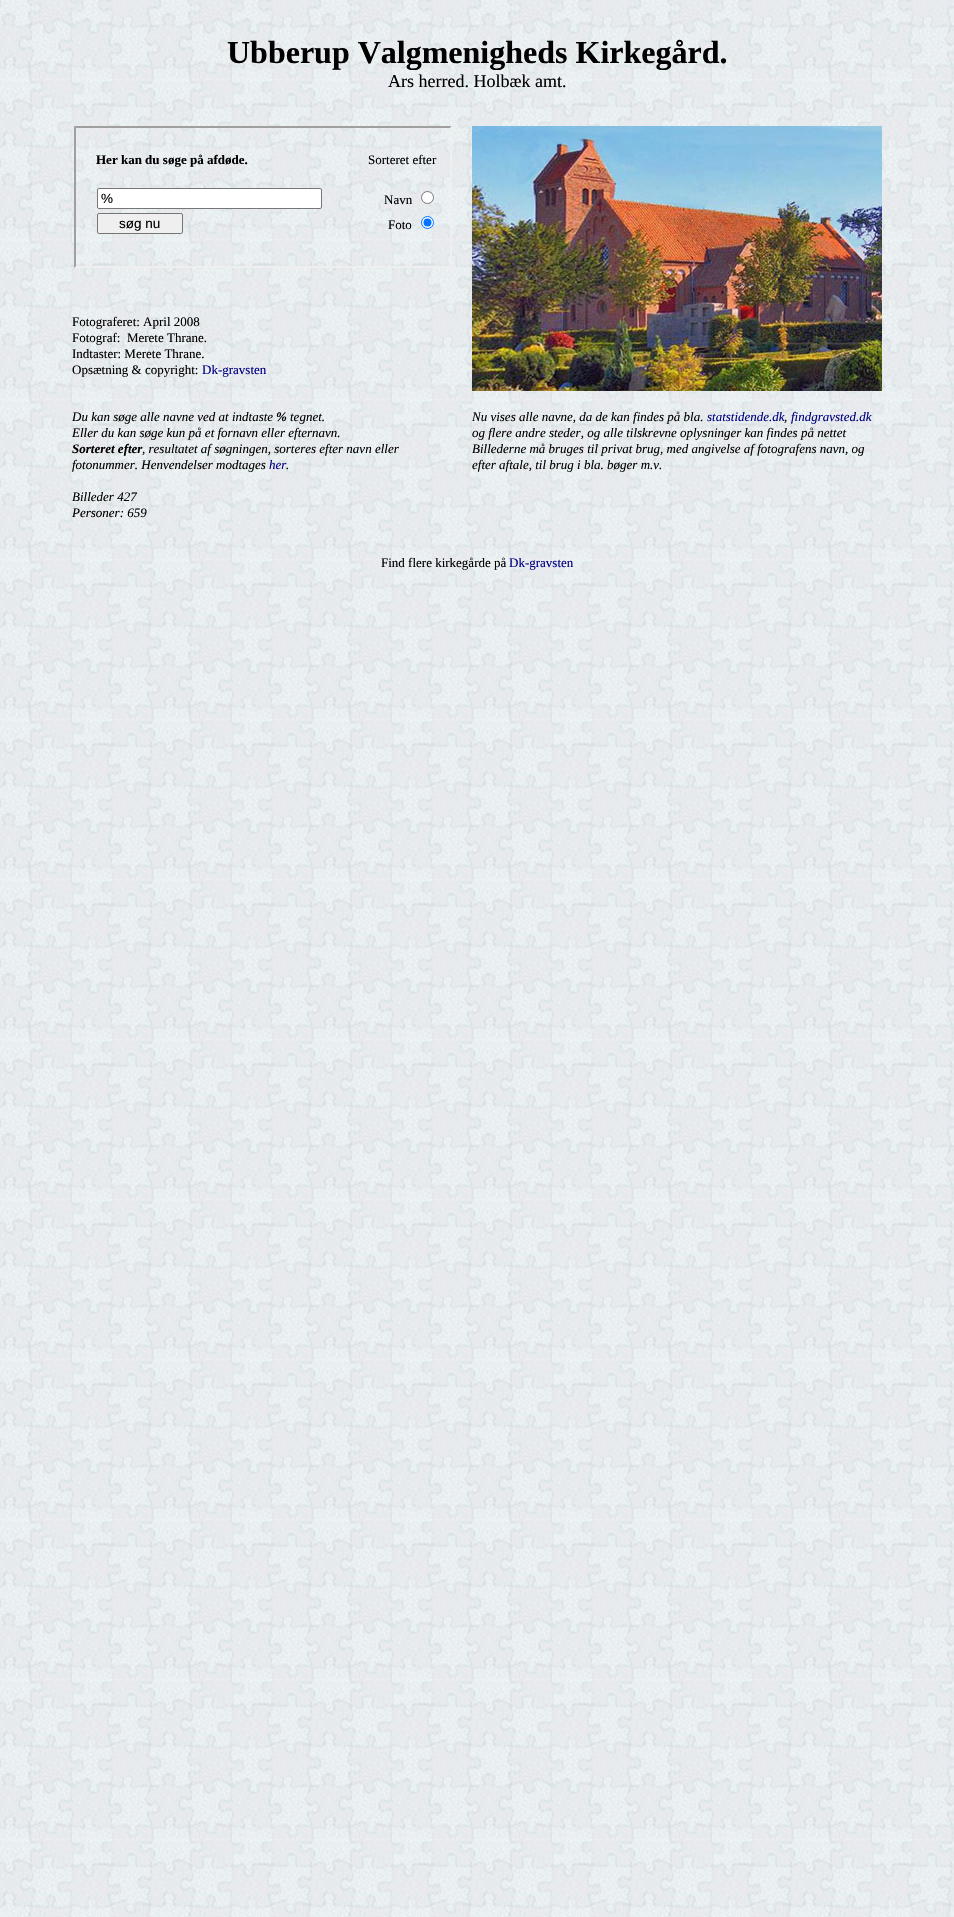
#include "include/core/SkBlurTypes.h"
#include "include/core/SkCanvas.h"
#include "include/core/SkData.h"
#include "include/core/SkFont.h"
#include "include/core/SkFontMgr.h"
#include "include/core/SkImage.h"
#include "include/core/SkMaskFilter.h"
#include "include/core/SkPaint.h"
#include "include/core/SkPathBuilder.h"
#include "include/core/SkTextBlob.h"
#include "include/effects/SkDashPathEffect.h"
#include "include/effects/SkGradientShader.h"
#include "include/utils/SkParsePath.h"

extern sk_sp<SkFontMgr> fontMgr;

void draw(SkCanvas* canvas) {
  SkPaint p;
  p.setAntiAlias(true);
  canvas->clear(SK_ColorWHITE);
  canvas->drawImageRect(SkImages::DeferredFromEncodedData(SkData::MakeFromFileName("images/1.png")), SkRect::MakeLTRB(0, 0, 954, 1917), SkSamplingOptions());
  p.setColor(SkColorSetRGB(159, 159, 159));
  canvas->drawPath(SkPathBuilder().moveTo(74, 126).lineTo(452, 126).lineTo(450, 128).lineTo(76, 128).close().detach(), p);
  p.setColor(SkColorSetRGB(239, 239, 239));
  canvas->drawPath(SkPathBuilder().moveTo(452, 126).lineTo(452, 268).lineTo(450, 266).lineTo(450, 128).close().detach(), p);
  canvas->drawPath(SkPathBuilder().moveTo(452, 268).lineTo(74, 268).lineTo(76, 266).lineTo(450, 266).close().detach(), p);
  p.setColor(SkColorSetRGB(159, 159, 159));
  canvas->drawPath(SkPathBuilder().moveTo(74, 268).lineTo(74, 126).lineTo(76, 128).lineTo(76, 266).close().detach(), p);
  p.setColor(SK_ColorWHITE);
  canvas->drawRoundRect(SkRect::MakeLTRB(97.5f, 188.5f, 321.5f, 208.5f), 1.5f, 1.5f, p);
  p.setStyle(SkPaint::kStroke_Style);
  p.setStrokeWidth(1);
  p.setColor(SkColorSetRGB(118, 118, 118));
  canvas->drawRoundRect(SkRect::MakeLTRB(97.5f, 188.5f, 321.5f, 208.5f), 1.5f, 1.5f, p);
  p.setStyle(SkPaint::kFill_Style);
  p.setColor(SK_ColorWHITE);
  canvas->drawCircle(427.5f, 197.5f, 6, p);
  p.setStyle(SkPaint::kStroke_Style);
  p.setColor(SkColorSetRGB(118, 118, 118));
  canvas->drawCircle(427.5f, 197.5f, 6, p);
  p.setStyle(SkPaint::kFill_Style);
  p.setColor(SkColorSetRGB(239, 239, 239));
  canvas->drawRoundRect(SkRect::MakeLTRB(97.5f, 213.5f, 182.5f, 233.5f), 1.5f, 1.5f, p);
  p.setStyle(SkPaint::kStroke_Style);
  p.setColor(SkColorSetRGB(118, 118, 118));
  canvas->drawRoundRect(SkRect::MakeLTRB(97.5f, 213.5f, 182.5f, 233.5f), 1.5f, 1.5f, p);
  p.setStyle(SkPaint::kFill_Style);
  p.setColor(SK_ColorWHITE);
  canvas->drawCircle(427.5f, 222.5f, 6, p);
  p.setStyle(SkPaint::kStroke_Style);
  p.setColor(SkColorSetRGB(0, 117, 255));
  canvas->drawCircle(427.5f, 222.5f, 6, p);
  p.setStyle(SkPaint::kFill_Style);
  canvas->drawCircle(427.5f, 222.5f, 4, p);
  canvas->drawImageRect(SkImages::DeferredFromEncodedData(SkData::MakeFromFileName("images/2.png")), SkRect::MakeLTRB(472, 126, 882, 391), SkSamplingOptions());
  SkFont font1(fontMgr->matchFamilyStyle("Liberation Serif", SkFontStyle::Bold()), 32);
  font1.setSubpixel(true);
  p.setColor(SK_ColorBLACK);
  canvas->drawString("Ubberup Valgmenigheds Kirkegård.", 227, 63, font1, p);
  SkFont font2(fontMgr->matchFamilyStyle("Liberation Serif", SkFontStyle::Normal()), 18);
  font2.setSubpixel(true);
  canvas->drawString("Ars herred. Holbæk amt.", 388, 87, font2, p);
  SkFont font3(fontMgr->matchFamilyStyle("Liberation Serif", SkFontStyle::Bold()), 13);
  font3.setSubpixel(true);
  canvas->drawString("Her kan du søge på afdøde.", 96, 164, font3, p);
  SkFont font4(fontMgr->matchFamilyStyle("Liberation Serif", SkFontStyle::Normal()), 13);
  font4.setSubpixel(true);
  canvas->drawString("Sorteret efter", 368, 164, font4, p);
  SkFont font5(fontMgr->matchFamilyStyle("Liberation Sans", SkFontStyle::Normal()), 13.5f);
  font5.setSubpixel(true);
  canvas->drawString("%", 101, 203, font5, p);
  canvas->drawString("Navn", 384, 204, font4, p);
  canvas->drawString("søg nu", 119, 228, font5, p);
  canvas->drawString("Foto", 388, 229, font4, p);
  canvas->drawString("Fotograferet: April 2008", 72, 326, font4, p);
  canvas->drawString("Fotograf:  Merete Thrane.", 72, 342, font4, p);
  canvas->drawString("Indtaster: Merete Thrane.", 72, 358, font4, p);
  canvas->drawString("Opsætning & copyright:", 72, 374, font4, p);
  p.setColor(SkColorSetRGB(0, 0, 128));
  canvas->drawString("Dk-gravsten", 202, 374, font4, p);
  SkFont font6(fontMgr->matchFamilyStyle("Liberation Serif", SkFontStyle::Italic()), 13);
  font6.setSubpixel(true);
  p.setColor(SK_ColorBLACK);
  canvas->drawString("Du kan søge alle navne ved at indtaste", 72, 421, font6, p);
  SkFont font7(fontMgr->matchFamilyStyle("Liberation Serif", SkFontStyle::BoldItalic()), 13);
  font7.setSubpixel(true);
  canvas->drawString("%", 276, 421, font7, p);
  canvas->drawString("tegnet.", 290, 421, font6, p);
  canvas->drawString("Eller du kan søge kun på et fornavn eller efternavn.", 72, 437, font6, p);
  canvas->drawString("Sorteret efter", 72, 453, font7, p);
  canvas->drawString(", resultatet af søgningen, sorteres efter navn eller", 142, 453, font6, p);
  canvas->drawString("fotonummer. Henvendelser modtages", 72, 469, font6, p);
  p.setColor(SkColorSetRGB(0, 0, 128));
  canvas->drawString("her", 269, 469, font6, p);
  p.setColor(SK_ColorBLACK);
  canvas->drawString(".", 286, 469, font6, p);
  canvas->drawString("Billeder 427", 72, 501, font6, p);
  canvas->drawString("Personer: 659", 72, 517, font6, p);
  canvas->drawString("Nu vises alle navne, da de kan findes på bla.", 472, 421, font6, p);
  p.setColor(SkColorSetRGB(0, 0, 128));
  canvas->drawString("statstidende.dk", 707, 421, font6, p);
  p.setColor(SK_ColorBLACK);
  canvas->drawString(",", 784, 421, font6, p);
  p.setColor(SkColorSetRGB(0, 0, 128));
  canvas->drawString("findgravsted.dk", 791, 421, font6, p);
  p.setColor(SK_ColorBLACK);
  canvas->drawString("og flere andre steder, og alle tilskrevne oplysninger kan findes på nettet", 472, 437, font6, p);
  canvas->drawString("Billederne må bruges til privat brug, med angivelse af fotografens navn, og", 472, 453, font6, p);
  canvas->drawString("efter aftale, til brug i bla. bøger m.v.", 472, 469, font6, p);
  canvas->drawString("Find flere kirkegårde på", 381, 567, font4, p);
  p.setColor(SkColorSetRGB(0, 0, 128));
  canvas->drawString("Dk-gravsten", 509, 567, font4, p);
}
